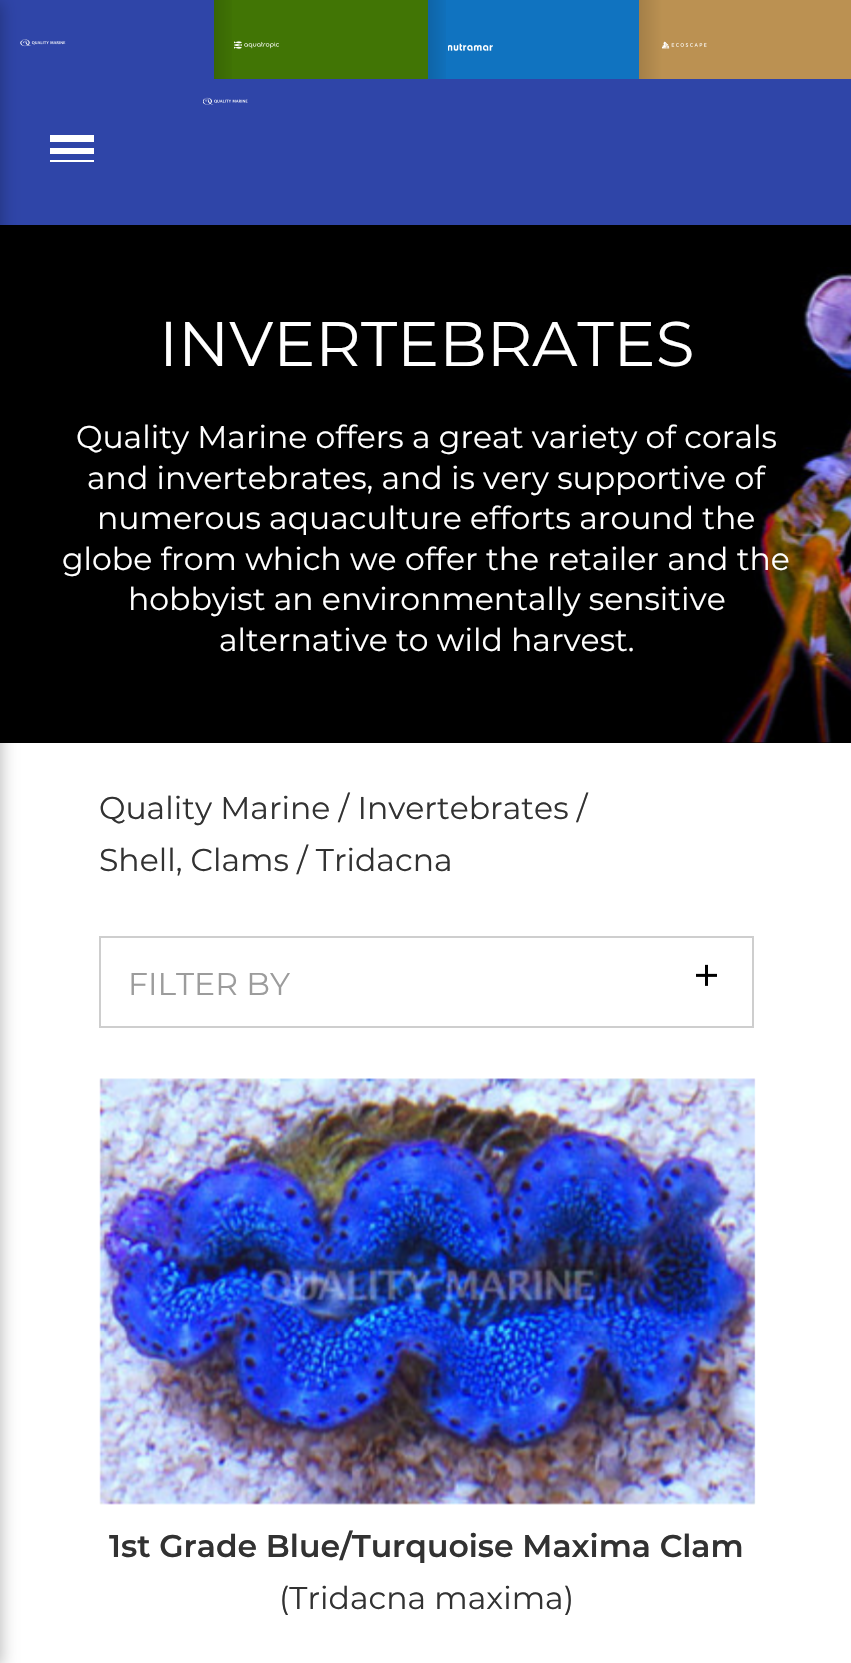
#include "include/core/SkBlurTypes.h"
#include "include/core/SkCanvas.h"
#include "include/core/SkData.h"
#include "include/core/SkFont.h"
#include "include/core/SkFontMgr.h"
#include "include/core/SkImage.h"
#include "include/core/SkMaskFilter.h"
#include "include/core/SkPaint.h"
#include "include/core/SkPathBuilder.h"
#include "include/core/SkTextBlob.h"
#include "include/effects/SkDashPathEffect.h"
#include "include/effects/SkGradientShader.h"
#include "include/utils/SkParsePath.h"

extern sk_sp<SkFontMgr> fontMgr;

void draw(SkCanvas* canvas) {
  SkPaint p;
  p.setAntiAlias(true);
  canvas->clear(SK_ColorWHITE);
  p.setColor(SkColorSetRGB(47, 69, 168));
  canvas->drawRect(SkRect::MakeLTRB(0, 0, 214, 79), p);
  canvas->drawImageRect(SkImages::DeferredFromEncodedData(SkData::MakeFromFileName("images/1.png")), SkRect::MakeLTRB(20, 39, 66, 47), SkSamplingOptions());
  p.setColor(SkColorSetRGB(65, 117, 5));
  canvas->drawRect(SkRect::MakeLTRB(214, 0, 428, 79), p);
  {
    const SkColor colors[] = {SkColorSetARGB(33, 0, 0, 0), SkColorSetARGB(0, 0, 0, 0)};
    const float stops[] = {0, 1};
    const SkPoint ends[] = {{214, 39}, {236, 39}};
    p.setShader(SkGradientShader::MakeLinear(ends, colors, stops, 2, SkTileMode::kClamp));
    p.setAlpha(255);
  }
  canvas->drawRect(SkRect::MakeLTRB(214, 0, 232, 79), p);
  canvas->drawImageRect(SkImages::DeferredFromEncodedData(SkData::MakeFromFileName("images/2.png")), SkRect::MakeLTRB(234, 41, 279, 49), SkSamplingOptions());
  p.setShader(nullptr);
  p.setColor(SkColorSetRGB(16, 115, 192));
  canvas->drawRect(SkRect::MakeLTRB(428, 0, 639, 79), p);
  {
    const SkColor colors[] = {SkColorSetARGB(33, 0, 0, 0), SkColorSetARGB(0, 0, 0, 0)};
    const float stops[] = {0, 1};
    const SkPoint ends[] = {{428, 39}, {450, 39}};
    p.setShader(SkGradientShader::MakeLinear(ends, colors, stops, 2, SkTileMode::kClamp));
    p.setAlpha(255);
  }
  canvas->drawRect(SkRect::MakeLTRB(428, 0, 446, 79), p);
  canvas->drawImageRect(SkImages::DeferredFromEncodedData(SkData::MakeFromFileName("images/3.png")), SkRect::MakeLTRB(448, 43, 493, 51), SkSamplingOptions());
  {
    const SkColor colors[] = {SkColorSetRGB(163, 127, 72), SkColorSetRGB(187, 145, 82)};
    const float stops[] = {0, 1};
    const SkPoint ends[] = {{639, 39}, {662, 39}};
    p.setShader(SkGradientShader::MakeLinear(ends, colors, stops, 2, SkTileMode::kClamp));
    p.setAlpha(255);
  }
  canvas->drawRect(SkRect::MakeLTRB(639, 0, 662, 79), p);
  p.setShader(nullptr);
  p.setColor(SkColorSetRGB(187, 145, 82));
  canvas->drawRect(SkRect::MakeLTRB(662, 0, 851, 79), p);
  canvas->drawImageRect(SkImages::DeferredFromEncodedData(SkData::MakeFromFileName("images/4.png")), SkRect::MakeLTRB(662, 41, 707, 49), SkSamplingOptions());
  p.setColor(SkColorSetRGB(47, 69, 168));
  canvas->drawRect(SkRect::MakeLTRB(0, 79, 851, 225), p);
  canvas->drawImageRect(SkImages::DeferredFromEncodedData(SkData::MakeFromFileName("images/5.png")), SkRect::MakeLTRB(203, 97, 248, 105), SkSamplingOptions());
  canvas->save();
  canvas->clipRect(SkRect::MakeLTRB(50, 128, 99, 162));
  p.setColor(SK_ColorWHITE);
  canvas->drawPath(SkPathBuilder().moveTo(50, 160).lineTo(94, 160).lineTo(94, 166).lineTo(50, 166).close().moveTo(50, 148).lineTo(94, 148).lineTo(94, 154).lineTo(50, 154).close().moveTo(50, 135).lineTo(94, 135).lineTo(94, 142).lineTo(50, 142).close().detach(), p);
  canvas->restore();
  p.setColor(SK_ColorBLACK);
  canvas->drawRect(SkRect::MakeLTRB(0, 225, 851, 743), p);
  p.setColor(SkColorSetARGB(64, 0, 0, 0));
  p.setMaskFilter(SkMaskFilter::MakeBlur(kNormal_SkBlurStyle, 8));
  canvas->drawRect(SkRect::MakeLTRB(-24, 2, 2, 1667), p);
  p.setMaskFilter(nullptr);
  canvas->drawImageRect(SkImages::DeferredFromEncodedData(SkData::MakeFromFileName("images/6.png")), SkRect::MakeLTRB(722, 267, 851, 743), SkSamplingOptions());
  p.setStyle(SkPaint::kStroke_Style);
  p.setStrokeWidth(2);
  p.setColor(SkColorSetRGB(206, 206, 206));
  canvas->drawRect(SkRect::MakeLTRB(100, 937, 753, 1027), p);
  canvas->drawImageRect(SkImages::DeferredFromEncodedData(SkData::MakeFromFileName("images/7.png")), SkRect::MakeLTRB(696, 964, 717, 986), SkSamplingOptions());
  canvas->drawImageRect(SkImages::DeferredFromEncodedData(SkData::MakeFromFileName("images/8.png")), SkRect::MakeLTRB(99, 1078, 756, 1505), SkSamplingOptions());
  SkFont font1(fontMgr->matchFamilyStyle("Montserrat", SkFontStyle::Normal()), 63);
  font1.setSubpixel(true);
  p.setStyle(SkPaint::kFill_Style);
  p.setColor(SK_ColorWHITE);
  canvas->drawString("INVERTEBRATES", 159, 366, font1, p);
  SkFont font2(fontMgr->matchFamilyStyle("Montserrat", SkFontStyle::Normal()), 31.5f);
  font2.setSubpixel(true);
  canvas->drawString("Quality Marine offers a great variety of corals", 76, 448, font2, p);
  canvas->drawString("and invertebrates, and is very supportive of", 87, 489, font2, p);
  canvas->drawString("numerous aquaculture efforts around the", 97, 529, font2, p);
  canvas->drawString("globe from which we offer the retailer and the", 62, 570, font2, p);
  canvas->drawString("hobbyist an environmentally sensitive", 128, 610, font2, p);
  canvas->drawString("alternative to wild harvest.", 219, 651, font2, p);
  p.setColor(SkColorSetRGB(50, 50, 50));
  canvas->drawString("Quality Marine / Invertebrates /", 99, 819, font2, p);
  canvas->drawString("Shell, Clams / Tridacna", 99, 871, font2, p);
  p.setColor(SkColorSetRGB(156, 156, 156));
  canvas->drawString("FILTER BY", 128, 995, font2, p);
  SkFont font3(fontMgr->matchFamilyStyle("Montserrat", SkFontStyle(600, SkFontStyle::kNormal_Width, SkFontStyle::kUpright_Slant)), 31.5f);
  font3.setSubpixel(true);
  p.setColor(SkColorSetRGB(50, 50, 50));
  canvas->drawString("1st Grade Blue/Turquoise Maxima Clam", 109, 1557, font3, p);
  canvas->drawString("(Tridacna maxima)", 279, 1609, font2, p);
}
